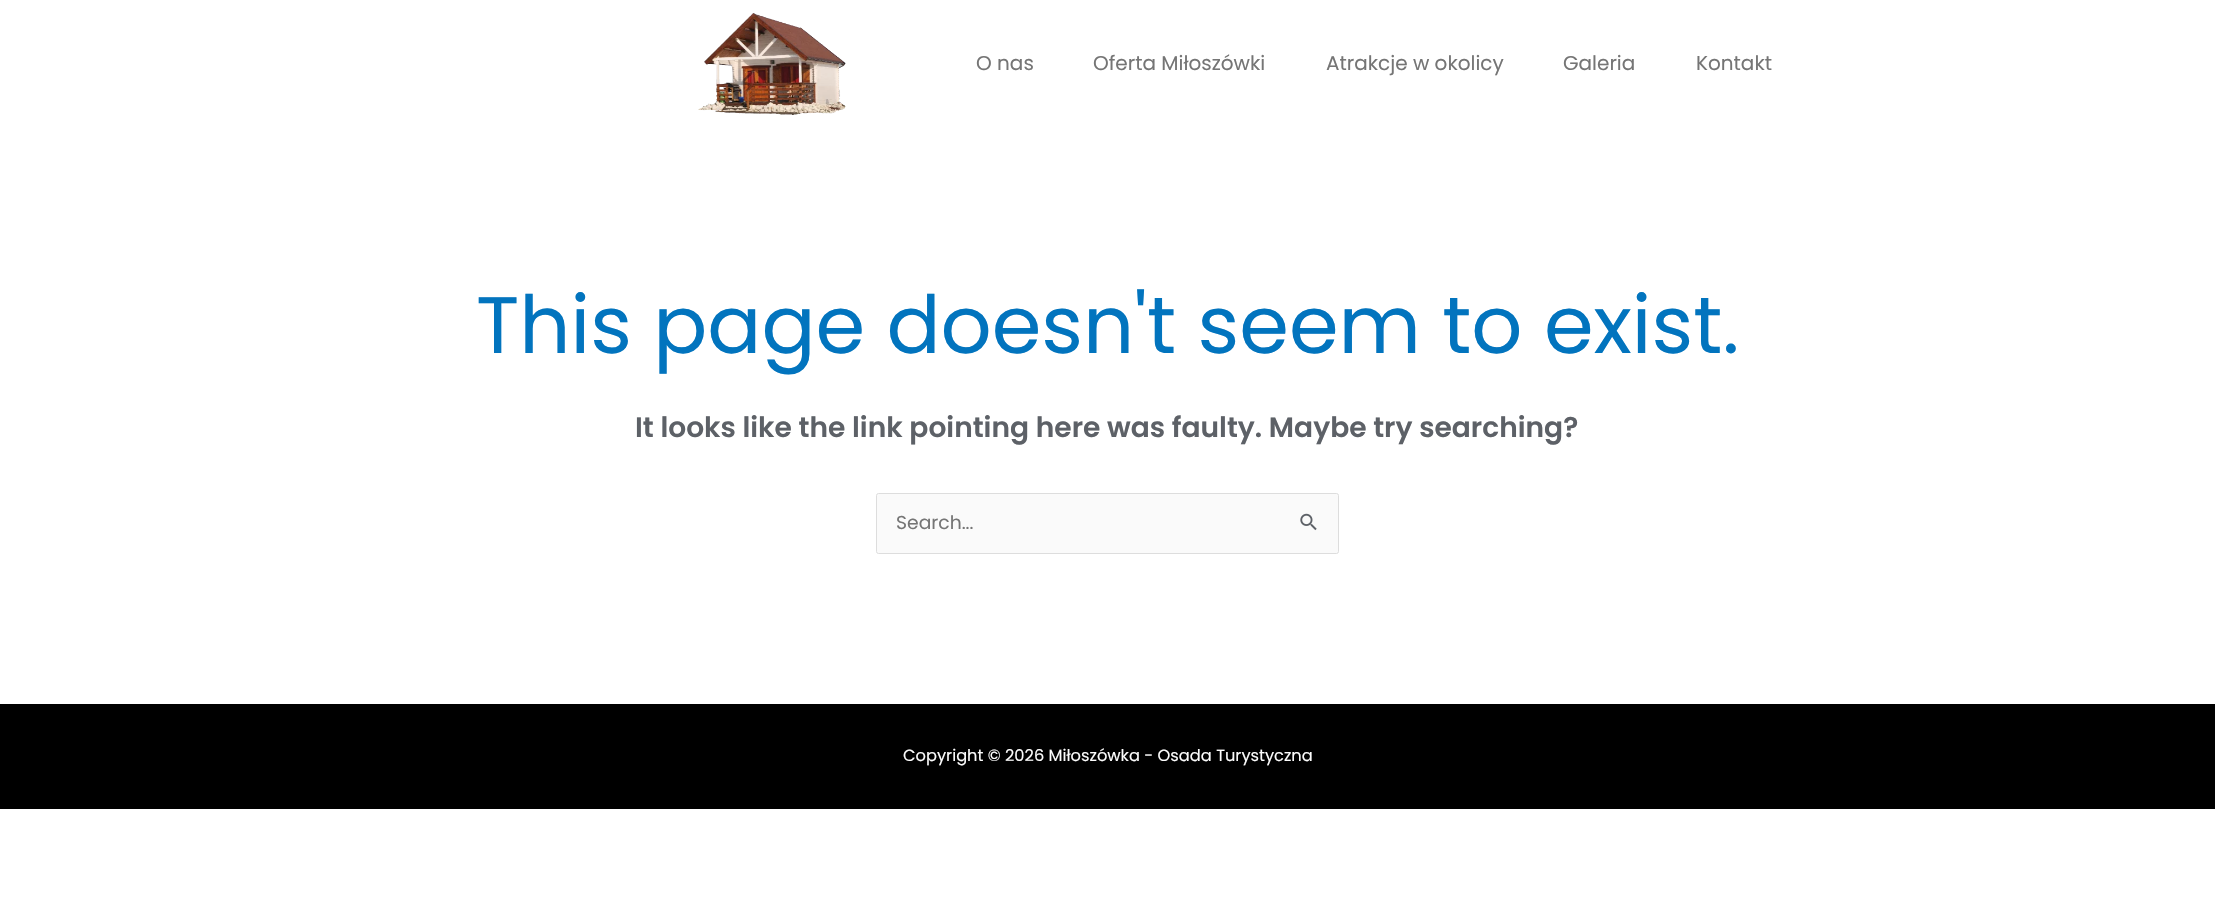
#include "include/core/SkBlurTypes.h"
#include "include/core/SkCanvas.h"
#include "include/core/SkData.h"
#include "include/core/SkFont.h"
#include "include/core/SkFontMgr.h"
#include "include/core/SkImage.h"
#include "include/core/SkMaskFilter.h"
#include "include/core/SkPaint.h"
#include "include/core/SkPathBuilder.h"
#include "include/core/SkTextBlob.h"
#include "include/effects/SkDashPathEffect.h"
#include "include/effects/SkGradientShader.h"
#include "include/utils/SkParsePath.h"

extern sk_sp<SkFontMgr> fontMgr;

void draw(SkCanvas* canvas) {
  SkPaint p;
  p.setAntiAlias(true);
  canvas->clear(SK_ColorWHITE);
  canvas->drawImageRect(SkImages::DeferredFromEncodedData(SkData::MakeFromFileName("images/1.png")), SkRect::MakeLTRB(698, 13, 846, 115), SkSamplingOptions());
  p.setColor(SkColorSetRGB(250, 250, 250));
  canvas->drawRoundRect(SkRect::MakeLTRB(876.5f, 493.5f, 1338.5f, 553.5f), 2, 2, p);
  p.setStyle(SkPaint::kStroke_Style);
  p.setStrokeWidth(1);
  p.setColor(SkColorSetRGB(221, 221, 221));
  canvas->drawRoundRect(SkRect::MakeLTRB(876.5f, 493.5f, 1338.5f, 553.5f), 2, 2, p);
  canvas->drawImageRect(SkImages::DeferredFromEncodedData(SkData::MakeFromFileName("images/2.png")), SkRect::MakeLTRB(1300, 513, 1317, 531), SkSamplingOptions());
  p.setStyle(SkPaint::kFill_Style);
  p.setColor(SK_ColorBLACK);
  canvas->drawRect(SkRect::MakeLTRB(0, 704, 2215, 809), p);
  SkFont font1(fontMgr->matchFamilyStyle("Poppins", SkFontStyle::Normal()), 20);
  font1.setSubpixel(true);
  p.setColor(SkColorSetRGB(117, 117, 117));
  canvas->drawString("O nas", 976, 70, font1, p);
  canvas->drawString("Oferta Miłoszówki", 1093, 70, font1, p);
  canvas->drawString("Atrakcje w okolicy", 1326, 70, font1, p);
  canvas->drawString("Galeria", 1563, 70, font1, p);
  canvas->drawString("Kontakt", 1696, 70, font1, p);
  SkFont font2(fontMgr->matchFamilyStyle("Poppins", SkFontStyle::Normal()), 80);
  font2.setSubpixel(true);
  p.setColor(SkColorSetRGB(2, 116, 190));
  canvas->drawString("This page doesn't seem to exist.", 476, 353, font2, p);
  SkFont font3(fontMgr->matchFamilyStyle("Poppins", SkFontStyle(600, SkFontStyle::kNormal_Width, SkFontStyle::kUpright_Slant)), 28.1f);
  font3.setSubpixel(true);
  p.setColor(SkColorSetRGB(93, 97, 103));
  canvas->drawString("It looks like the link pointing here was faulty. Maybe try searching?", 635, 437, font3, p);
  SkFont font4(fontMgr->matchFamilyStyle("Poppins", SkFontStyle::Normal()), 18.75f);
  font4.setSubpixel(true);
  p.setColor(SkColorSetRGB(117, 117, 117));
  canvas->drawString("Search...", 896, 529, font4, p);
  SkFont font5(fontMgr->matchFamilyStyle("Poppins", SkFontStyle::Normal()), 16.25f);
  font5.setSubpixel(true);
  p.setColor(SkColorSetRGB(252, 252, 252));
  canvas->drawString("Copyright © 2026 Miłoszówka - Osada Turystyczna", 903, 761, font5, p);
}
